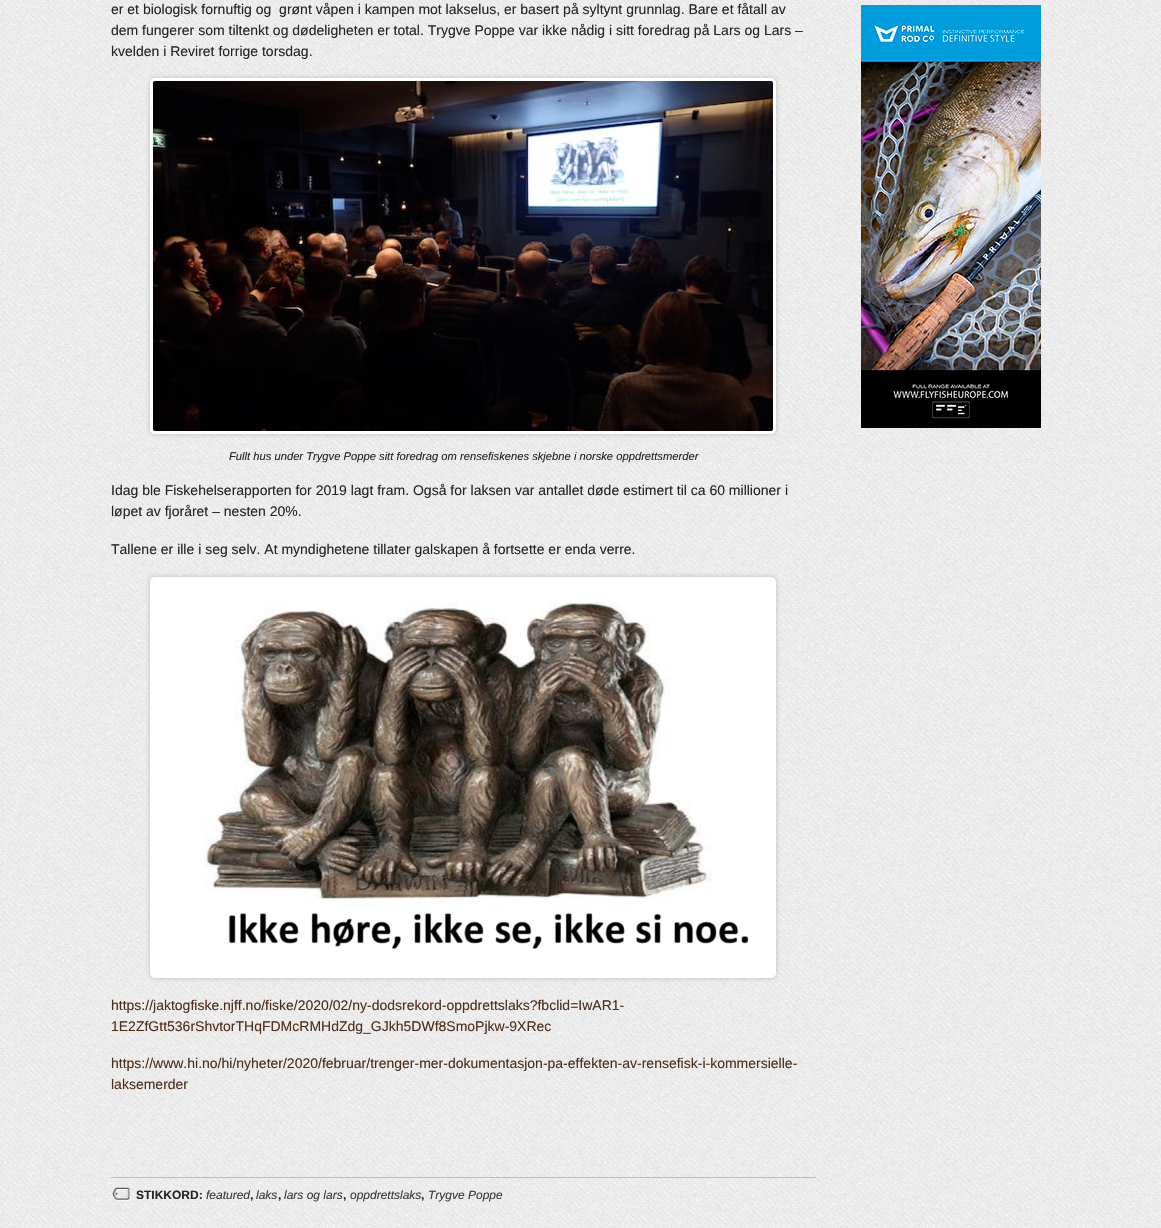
#include "include/core/SkBlurTypes.h"
#include "include/core/SkCanvas.h"
#include "include/core/SkData.h"
#include "include/core/SkFont.h"
#include "include/core/SkFontMgr.h"
#include "include/core/SkImage.h"
#include "include/core/SkMaskFilter.h"
#include "include/core/SkPaint.h"
#include "include/core/SkPathBuilder.h"
#include "include/core/SkTextBlob.h"
#include "include/effects/SkDashPathEffect.h"
#include "include/effects/SkGradientShader.h"
#include "include/utils/SkParsePath.h"

extern sk_sp<SkFontMgr> fontMgr;

void draw(SkCanvas* canvas) {
  SkPaint p;
  p.setAntiAlias(true);
  canvas->clear(SK_ColorWHITE);
  canvas->drawImageRect(SkImages::DeferredFromEncodedData(SkData::MakeFromFileName("images/1.png")), SkRect::MakeLTRB(0, 0, 1161, 1228), SkSamplingOptions());
  p.setColor(SkColorSetARGB(51, 0, 0, 0));
  p.setMaskFilter(SkMaskFilter::MakeBlur(kNormal_SkBlurStyle, 2.5f));
  canvas->drawRoundRect(SkRect::MakeLTRB(150, 78, 776, 434), 5, 5, p);
  p.setMaskFilter(nullptr);
  p.setStyle(SkPaint::kStroke_Style);
  p.setStrokeWidth(3);
  p.setColor(SK_ColorWHITE);
  canvas->drawRoundRect(SkRect::MakeLTRB(151.5f, 79.5f, 774.5f, 432.5f), 3.5f, 3.5f, p);
  canvas->drawImageRect(SkImages::DeferredFromEncodedData(SkData::MakeFromFileName("images/2.png")), SkRect::MakeLTRB(153, 81, 773, 431), SkSamplingOptions());
  p.setStyle(SkPaint::kFill_Style);
  p.setColor(SkColorSetARGB(51, 0, 0, 0));
  p.setMaskFilter(SkMaskFilter::MakeBlur(kNormal_SkBlurStyle, 2.5f));
  canvas->drawRoundRect(SkRect::MakeLTRB(150, 577, 776, 978), 5, 5, p);
  p.setMaskFilter(nullptr);
  p.setStyle(SkPaint::kStroke_Style);
  p.setColor(SK_ColorWHITE);
  canvas->drawRoundRect(SkRect::MakeLTRB(151.5f, 578.5f, 774.5f, 976.5f), 3.5f, 3.5f, p);
  canvas->drawImageRect(SkImages::DeferredFromEncodedData(SkData::MakeFromFileName("images/3.png")), SkRect::MakeLTRB(153, 580, 773, 975), SkSamplingOptions());
  canvas->drawImageRect(SkImages::DeferredFromEncodedData(SkData::MakeFromFileName("images/4.png")), SkRect::MakeLTRB(112, 1187, 131, 1201), SkSamplingOptions());
  p.setStyle(SkPaint::kFill_Style);
  p.setColor(SkColorSetARGB(51, 0, 0, 0));
  canvas->drawRect(SkRect::MakeLTRB(111, 1177, 816, 1178), p);
  canvas->drawImageRect(SkImages::DeferredFromEncodedData(SkData::MakeFromFileName("images/5.png")), SkRect::MakeLTRB(861, 5, 1041, 428), SkSamplingOptions());
  SkFont font1(fontMgr->matchFamilyStyle("Liberation Sans", SkFontStyle::Normal()), 14);
  font1.setSubpixel(true);
  p.setColor(SkColorSetRGB(36, 36, 36));
  canvas->drawString("er et biologisk fornuftig og  grønt våpen i kampen mot lakselus, er basert på syltynt grunnlag. Bare et fåtall av", 111, 14, font1, p);
  canvas->drawString("dem fungerer som tiltenkt og dødeligheten er total. Trygve Poppe var ikke nådig i sitt foredrag på Lars og Lars –", 111, 35, font1, p);
  canvas->drawString("kvelden i Reviret forrige torsdag.", 111, 56, font1, p);
  SkFont font2(fontMgr->matchFamilyStyle("Liberation Sans", SkFontStyle::Italic()), 11.2f);
  font2.setSubpixel(true);
  canvas->drawString("Fullt hus under Trygve Poppe sitt foredrag om rensefiskenes skjebne i norske oppdrettsmerder", 229, 460, font2, p);
  canvas->drawString("Idag ble Fiskehelserapporten for 2019 lagt fram. Også for laksen var antallet døde estimert til ca 60 millioner i", 111, 495, font1, p);
  canvas->drawString("løpet av fjoråret – nesten 20%.", 111, 516, font1, p);
  canvas->drawString("Tallene er ille i seg selv. At myndighetene tillater galskapen å fortsette er enda verre.", 111, 554, font1, p);
  p.setColor(SkColorSetRGB(77, 45, 24));
  canvas->drawString("https://jaktogfiske.njff.no/fiske/2020/02/ny-dodsrekord-oppdrettslaks?fbclid=IwAR1-", 111, 1010, font1, p);
  canvas->drawString("1E2ZfGtt536rShvtorTHqFDMcRMHdZdg_GJkh5DWf8SmoPjkw-9XRec", 111, 1031, font1, p);
  canvas->drawString("https://www.hi.no/hi/nyheter/2020/februar/trenger-mer-dokumentasjon-pa-effekten-av-rensefisk-i-kommersielle-", 111, 1068, font1, p);
  canvas->drawString("laksemerder", 111, 1089, font1, p);
  SkFont font3(fontMgr->matchFamilyStyle("Liberation Sans", SkFontStyle::Bold()), 12);
  font3.setSubpixel(true);
  p.setColor(SkColorSetRGB(36, 36, 36));
  canvas->drawString("STIKKORD:", 136, 1199, font3, p);
  SkFont font4(fontMgr->matchFamilyStyle("Liberation Sans", SkFontStyle::Italic()), 12);
  font4.setSubpixel(true);
  p.setColor(SkColorSetRGB(56, 56, 56));
  canvas->drawString("featured", 206, 1199, font4, p);
  p.setColor(SkColorSetRGB(36, 36, 36));
  canvas->drawString(",", 250, 1199, font3, p);
  p.setColor(SkColorSetRGB(56, 56, 56));
  canvas->drawString("laks", 256, 1199, font4, p);
  p.setColor(SkColorSetRGB(36, 36, 36));
  canvas->drawString(",", 278, 1199, font3, p);
  p.setColor(SkColorSetRGB(56, 56, 56));
  canvas->drawString("lars og lars", 284, 1199, font4, p);
  p.setColor(SkColorSetRGB(36, 36, 36));
  canvas->drawString(",", 343, 1199, font3, p);
  p.setColor(SkColorSetRGB(56, 56, 56));
  canvas->drawString("oppdrettslaks", 350, 1199, font4, p);
  p.setColor(SkColorSetRGB(36, 36, 36));
  canvas->drawString(",", 421, 1199, font3, p);
  p.setColor(SkColorSetRGB(56, 56, 56));
  canvas->drawString("Trygve Poppe", 428, 1199, font4, p);
}
